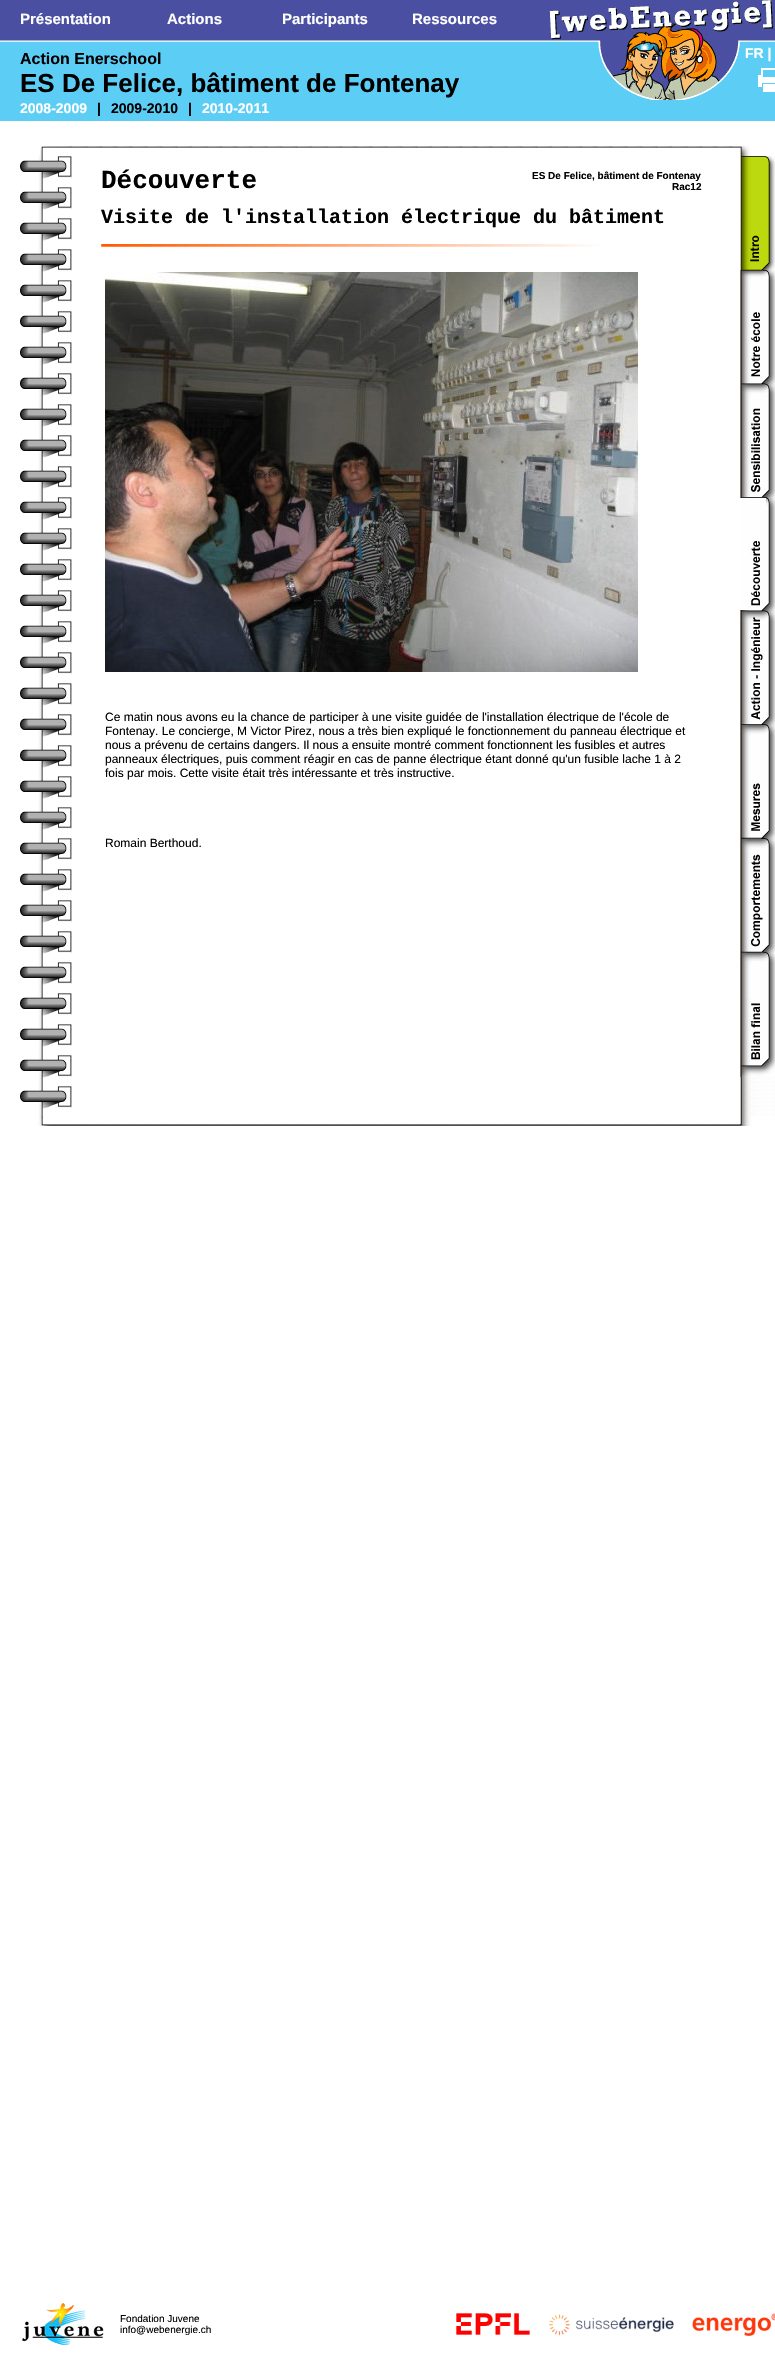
#include "include/core/SkBlurTypes.h"
#include "include/core/SkCanvas.h"
#include "include/core/SkData.h"
#include "include/core/SkFont.h"
#include "include/core/SkFontMgr.h"
#include "include/core/SkImage.h"
#include "include/core/SkMaskFilter.h"
#include "include/core/SkPaint.h"
#include "include/core/SkPathBuilder.h"
#include "include/core/SkTextBlob.h"
#include "include/effects/SkDashPathEffect.h"
#include "include/effects/SkGradientShader.h"
#include "include/utils/SkParsePath.h"

extern sk_sp<SkFontMgr> fontMgr;

void draw(SkCanvas* canvas) {
  SkPaint p;
  p.setAntiAlias(true);
  canvas->clear(SK_ColorWHITE);
  canvas->drawImageRect(SkImages::DeferredFromEncodedData(SkData::MakeFromFileName("images/1.png")), SkRect::MakeLTRB(0, 0, 775, 100), SkSamplingOptions());
  canvas->drawImageRect(SkImages::DeferredFromEncodedData(SkData::MakeFromFileName("images/2.png")), SkRect::MakeLTRB(758, 68, 775, 92), SkSamplingOptions());
  p.setColor(SkColorSetRGB(92, 206, 246));
  canvas->drawRect(SkRect::MakeLTRB(0, 100, 775, 121), p);
  canvas->drawImageRect(SkImages::DeferredFromEncodedData(SkData::MakeFromFileName("images/3.png")), SkRect::MakeLTRB(40, 146, 72, 156), SkSamplingOptions());
  canvas->drawImageRect(SkImages::DeferredFromEncodedData(SkData::MakeFromFileName("images/4.png")), SkRect::MakeLTRB(72, 146, 740, 148), SkSamplingOptions());
  canvas->drawImageRect(SkImages::DeferredFromEncodedData(SkData::MakeFromFileName("images/5.png")), SkRect::MakeLTRB(740, 146, 753, 156), SkSamplingOptions());
  canvas->drawImageRect(SkImages::DeferredFromEncodedData(SkData::MakeFromFileName("images/6.png")), SkRect::MakeLTRB(20, 156, 72, 1116), SkSamplingOptions());
  canvas->drawImageRect(SkImages::DeferredFromEncodedData(SkData::MakeFromFileName("images/7.png")), SkRect::MakeLTRB(38, 1116, 72, 1126), SkSamplingOptions());
  canvas->drawImageRect(SkImages::DeferredFromEncodedData(SkData::MakeFromFileName("images/8.png")), SkRect::MakeLTRB(101, 244, 601, 247), SkSamplingOptions());
  canvas->drawImageRect(SkImages::DeferredFromEncodedData(SkData::MakeFromFileName("images/9.png")), SkRect::MakeLTRB(105, 272, 638, 672), SkSamplingOptions());
  canvas->drawImageRect(SkImages::DeferredFromEncodedData(SkData::MakeFromFileName("images/10.png")), SkRect::MakeLTRB(740, 1077, 775, 1116), SkSamplingOptions());
  canvas->drawImageRect(SkImages::DeferredFromEncodedData(SkData::MakeFromFileName("images/11.png")), SkRect::MakeLTRB(740, 156, 775, 270), SkSamplingOptions());
  canvas->drawImageRect(SkImages::DeferredFromEncodedData(SkData::MakeFromFileName("images/12.png")), SkRect::MakeLTRB(740, 270, 775, 383), SkSamplingOptions());
  canvas->drawImageRect(SkImages::DeferredFromEncodedData(SkData::MakeFromFileName("images/13.png")), SkRect::MakeLTRB(740, 383, 775, 497), SkSamplingOptions());
  canvas->drawImageRect(SkImages::DeferredFromEncodedData(SkData::MakeFromFileName("images/14.png")), SkRect::MakeLTRB(740, 497, 775, 610), SkSamplingOptions());
  canvas->drawImageRect(SkImages::DeferredFromEncodedData(SkData::MakeFromFileName("images/15.png")), SkRect::MakeLTRB(740, 610, 775, 724), SkSamplingOptions());
  canvas->drawImageRect(SkImages::DeferredFromEncodedData(SkData::MakeFromFileName("images/16.png")), SkRect::MakeLTRB(740, 724, 775, 838), SkSamplingOptions());
  canvas->drawImageRect(SkImages::DeferredFromEncodedData(SkData::MakeFromFileName("images/17.png")), SkRect::MakeLTRB(740, 838, 775, 952), SkSamplingOptions());
  canvas->drawImageRect(SkImages::DeferredFromEncodedData(SkData::MakeFromFileName("images/18.png")), SkRect::MakeLTRB(740, 952, 775, 1077), SkSamplingOptions());
  canvas->drawImageRect(SkImages::DeferredFromEncodedData(SkData::MakeFromFileName("images/19.png")), SkRect::MakeLTRB(72, 1124, 740, 1126), SkSamplingOptions());
  canvas->drawImageRect(SkImages::DeferredFromEncodedData(SkData::MakeFromFileName("images/20.png")), SkRect::MakeLTRB(740, 1116, 751, 1126), SkSamplingOptions());
  canvas->drawImageRect(SkImages::DeferredFromEncodedData(SkData::MakeFromFileName("images/21.png")), SkRect::MakeLTRB(22, 2303, 104, 2345), SkSamplingOptions());
  canvas->drawImageRect(SkImages::DeferredFromEncodedData(SkData::MakeFromFileName("images/22.png")), SkRect::MakeLTRB(456, 2313, 530, 2335), SkSamplingOptions());
  canvas->drawImageRect(SkImages::DeferredFromEncodedData(SkData::MakeFromFileName("images/23.png")), SkRect::MakeLTRB(549, 2314, 674, 2336), SkSamplingOptions());
  canvas->drawImageRect(SkImages::DeferredFromEncodedData(SkData::MakeFromFileName("images/24.png")), SkRect::MakeLTRB(692, 2313, 775, 2336), SkSamplingOptions());
  SkFont font1(fontMgr->matchFamilyStyle("Liberation Sans", SkFontStyle::Bold()), 15);
  font1.setSubpixel(true);
  p.setColor(SK_ColorWHITE);
  canvas->drawString("Présentation", 20, 24, font1, p);
  canvas->drawString("Actions", 167, 24, font1, p);
  canvas->drawString("Participants", 282, 24, font1, p);
  canvas->drawString("Ressources", 412, 24, font1, p);
  SkFont font2(fontMgr->matchFamilyStyle("Liberation Sans", SkFontStyle::Bold()), 14);
  font2.setSubpixel(true);
  canvas->drawString("FR |", 745, 58, font2, p);
  SkFont font3(fontMgr->matchFamilyStyle("Liberation Sans", SkFontStyle::Bold()), 16);
  font3.setSubpixel(true);
  p.setColor(SK_ColorBLACK);
  canvas->drawString("Action Enerschool", 20, 64, font3, p);
  SkFont font4(fontMgr->matchFamilyStyle("Liberation Sans", SkFontStyle::Bold()), 26);
  font4.setSubpixel(true);
  canvas->drawString("ES De Felice, bâtiment de Fontenay", 20, 92, font4, p);
  p.setColor(SK_ColorWHITE);
  canvas->drawString("2008-2009", 20, 113, font2, p);
  p.setColor(SK_ColorBLACK);
  canvas->drawString("|", 97, 113, font2, p);
  canvas->drawString("2009-2010", 111, 113, font2, p);
  canvas->drawString("|", 188, 113, font2, p);
  p.setColor(SK_ColorWHITE);
  canvas->drawString("2010-2011", 202, 113, font2, p);
  SkFont font5(fontMgr->matchFamilyStyle("Liberation Mono", SkFontStyle::Bold()), 26);
  font5.setSubpixel(true);
  p.setColor(SK_ColorBLACK);
  canvas->drawString("Découverte", 101, 188, font5, p);
  SkFont font6(fontMgr->matchFamilyStyle("Liberation Sans", SkFontStyle::Bold()), 10);
  font6.setSubpixel(true);
  canvas->drawString("ES De Felice, bâtiment de Fontenay", 532, 179, font6, p);
  canvas->drawString("Rac12", 672, 190, font6, p);
  SkFont font7(fontMgr->matchFamilyStyle("Liberation Mono", SkFontStyle::Bold()), 20);
  font7.setSubpixel(true);
  canvas->drawString("Visite de l'installation électrique du bâtiment", 101, 223, font7, p);
  SkFont font8(fontMgr->matchFamilyStyle("Liberation Sans", SkFontStyle::Normal()), 12);
  font8.setSubpixel(true);
  canvas->drawString("Ce matin nous avons eu la chance de participer à une visite guidée de l'installation électrique de l'école de", 105, 721, font8, p);
  canvas->drawString("Fontenay. Le concierge, M Victor Pirez, nous a très bien expliqué le fonctionnement du panneau électrique et", 105, 735, font8, p);
  canvas->drawString("nous a prévenu de certains dangers. Il nous a ensuite montré comment fonctionnent les fusibles et autres", 105, 749, font8, p);
  canvas->drawString("panneaux électriques, puis comment réagir en cas de panne électrique étant donné qu'un fusible lache 1 à 2", 105, 763, font8, p);
  canvas->drawString("fois par mois. Cette visite était très intéressante et très instructive.", 105, 777, font8, p);
  canvas->drawString("Romain Berthoud.", 105, 847, font8, p);
  SkFont font9(fontMgr->matchFamilyStyle("Liberation Sans", SkFontStyle::Normal()), 10);
  font9.setSubpixel(true);
  canvas->drawString("Fondation Juvene", 120, 2322, font9, p);
  canvas->drawString("info@webenergie.ch", 120, 2333, font9, p);
}
